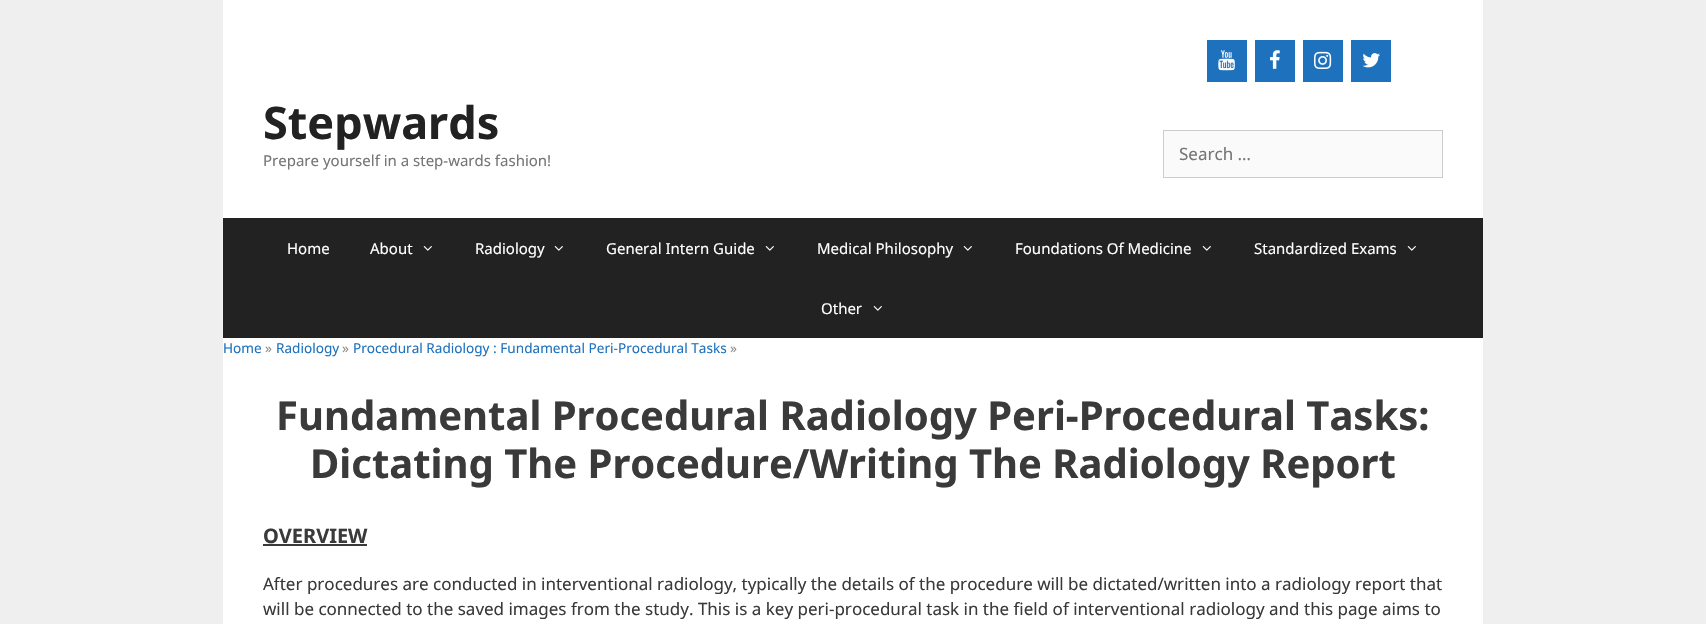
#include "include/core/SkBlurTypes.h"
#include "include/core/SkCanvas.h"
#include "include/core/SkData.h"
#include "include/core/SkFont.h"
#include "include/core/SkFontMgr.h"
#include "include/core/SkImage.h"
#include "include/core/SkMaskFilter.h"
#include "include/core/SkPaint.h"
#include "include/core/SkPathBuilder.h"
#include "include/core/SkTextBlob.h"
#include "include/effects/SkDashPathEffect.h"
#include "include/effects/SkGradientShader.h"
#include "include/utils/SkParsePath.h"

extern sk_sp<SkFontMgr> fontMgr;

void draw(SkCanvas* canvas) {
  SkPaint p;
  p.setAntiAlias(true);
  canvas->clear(SkColorSetRGB(239, 239, 239));
  p.setColor(SK_ColorWHITE);
  canvas->drawRect(SkRect::MakeLTRB(223, 0, 1483, 218), p);
  p.setColor(SkColorSetRGB(30, 114, 189));
  canvas->drawRect(SkRect::MakeLTRB(1207, 40, 1247, 82), p);
  canvas->drawImageRect(SkImages::DeferredFromEncodedData(SkData::MakeFromFileName("images/1.png")), SkRect::MakeLTRB(1218, 50, 1235, 71), SkSamplingOptions());
  canvas->drawRect(SkRect::MakeLTRB(1255, 40, 1295, 82), p);
  canvas->drawImageRect(SkImages::DeferredFromEncodedData(SkData::MakeFromFileName("images/2.png")), SkRect::MakeLTRB(1270, 50, 1280, 69), SkSamplingOptions());
  canvas->drawRect(SkRect::MakeLTRB(1303, 40, 1343, 82), p);
  canvas->drawImageRect(SkImages::DeferredFromEncodedData(SkData::MakeFromFileName("images/3.png")), SkRect::MakeLTRB(1314, 51, 1332, 69), SkSamplingOptions());
  canvas->drawRect(SkRect::MakeLTRB(1351, 40, 1391, 82), p);
  canvas->drawImageRect(SkImages::DeferredFromEncodedData(SkData::MakeFromFileName("images/4.png")), SkRect::MakeLTRB(1362, 53, 1380, 68), SkSamplingOptions());
  p.setColor(SkColorSetRGB(250, 250, 250));
  canvas->drawRect(SkRect::MakeLTRB(1163.5f, 130.5f, 1442.5f, 177.5f), p);
  p.setStyle(SkPaint::kStroke_Style);
  p.setStrokeWidth(1);
  p.setColor(SkColorSetRGB(204, 204, 204));
  canvas->drawRect(SkRect::MakeLTRB(1163.5f, 130.5f, 1442.5f, 177.5f), p);
  p.setStyle(SkPaint::kFill_Style);
  p.setColor(SkColorSetRGB(34, 34, 34));
  canvas->drawRect(SkRect::MakeLTRB(223, 218, 1483, 338), p);
  canvas->drawImageRect(SkImages::DeferredFromEncodedData(SkData::MakeFromFileName("images/5.png")), SkRect::MakeLTRB(423, 246, 432, 251), SkSamplingOptions());
  canvas->drawImageRect(SkImages::DeferredFromEncodedData(SkData::MakeFromFileName("images/5.png")), SkRect::MakeLTRB(554, 246, 563, 251), SkSamplingOptions());
  canvas->drawImageRect(SkImages::DeferredFromEncodedData(SkData::MakeFromFileName("images/5.png")), SkRect::MakeLTRB(765, 246, 774, 251), SkSamplingOptions());
  canvas->drawImageRect(SkImages::DeferredFromEncodedData(SkData::MakeFromFileName("images/5.png")), SkRect::MakeLTRB(963, 246, 972, 251), SkSamplingOptions());
  canvas->drawImageRect(SkImages::DeferredFromEncodedData(SkData::MakeFromFileName("images/5.png")), SkRect::MakeLTRB(1202, 246, 1211, 251), SkSamplingOptions());
  canvas->drawImageRect(SkImages::DeferredFromEncodedData(SkData::MakeFromFileName("images/5.png")), SkRect::MakeLTRB(1407, 246, 1416, 251), SkSamplingOptions());
  canvas->drawImageRect(SkImages::DeferredFromEncodedData(SkData::MakeFromFileName("images/5.png")), SkRect::MakeLTRB(873, 306, 882, 311), SkSamplingOptions());
  p.setColor(SK_ColorWHITE);
  canvas->drawRect(SkRect::MakeLTRB(223, 338, 1483, 624), p);
  p.setColor(SkColorSetRGB(58, 58, 58));
  canvas->drawRect(SkRect::MakeLTRB(263, 544, 367, 546), p);
  SkFont font1(fontMgr->matchFamilyStyle("Noto Sans", SkFontStyle::Bold()), 45);
  font1.setSubpixel(true);
  p.setColor(SkColorSetRGB(34, 34, 34));
  canvas->drawString("Stepwards", 263, 139, font1, p);
  SkFont font2(fontMgr->matchFamilyStyle("Noto Sans", SkFontStyle::Normal()), 15);
  font2.setSubpixel(true);
  p.setColor(SkColorSetRGB(117, 117, 117));
  canvas->drawString("Prepare yourself in a step-wards fashion!", 263, 166, font2, p);
  SkFont font3(fontMgr->matchFamilyStyle("Noto Sans", SkFontStyle::Normal()), 17);
  font3.setSubpixel(true);
  canvas->drawString("Search …", 1179, 160, font3, p);
  p.setColor(SK_ColorWHITE);
  canvas->drawString("Home", 287, 254, font2, p);
  canvas->drawString("About", 370, 254, font2, p);
  canvas->drawString("Radiology", 475, 254, font2, p);
  canvas->drawString("General Intern Guide", 606, 254, font2, p);
  canvas->drawString("Medical Philosophy", 817, 254, font2, p);
  canvas->drawString("Foundations Of Medicine", 1015, 254, font2, p);
  canvas->drawString("Standardized Exams", 1254, 254, font2, p);
  canvas->drawString("Other", 821, 314, font2, p);
  SkFont font4(fontMgr->matchFamilyStyle("Noto Sans", SkFontStyle::Normal()), 13.6f);
  font4.setSubpixel(true);
  p.setColor(SkColorSetRGB(30, 115, 190));
  canvas->drawString("Home", 223, 353, font4, p);
  p.setColor(SkColorSetRGB(142, 144, 143));
  canvas->drawString("»", 265, 353, font4, p);
  p.setColor(SkColorSetRGB(30, 115, 190));
  canvas->drawString("Radiology", 276, 353, font4, p);
  p.setColor(SkColorSetRGB(142, 144, 143));
  canvas->drawString("»", 342, 353, font4, p);
  p.setColor(SkColorSetRGB(30, 115, 190));
  canvas->drawString("Procedural Radiology : Fundamental Peri-Procedural Tasks", 353, 353, font4, p);
  p.setColor(SkColorSetRGB(142, 144, 143));
  canvas->drawString("»", 730, 353, font4, p);
  SkFont font5(fontMgr->matchFamilyStyle("Noto Sans", SkFontStyle::Bold()), 40);
  font5.setSubpixel(true);
  p.setColor(SkColorSetRGB(58, 58, 58));
  canvas->drawString("Fundamental Procedural Radiology Peri-Procedural Tasks:", 276, 430, font5, p);
  canvas->drawString("Dictating The Procedure/Writing The Radiology Report", 310, 478, font5, p);
  SkFont font6(fontMgr->matchFamilyStyle("Noto Sans", SkFontStyle::Bold()), 20);
  font6.setSubpixel(true);
  canvas->drawString("OVERVIEW", 263, 543, font6, p);
  canvas->drawString("After procedures are conducted in interventional radiology, typically the details of the procedure will be dictated/written into a radiology report that", 263, 590, font3, p);
  canvas->drawString("will be connected to the saved images from the study. This is a key peri-procedural task in the field of interventional radiology and this page aims to", 263, 615, font3, p);
}
